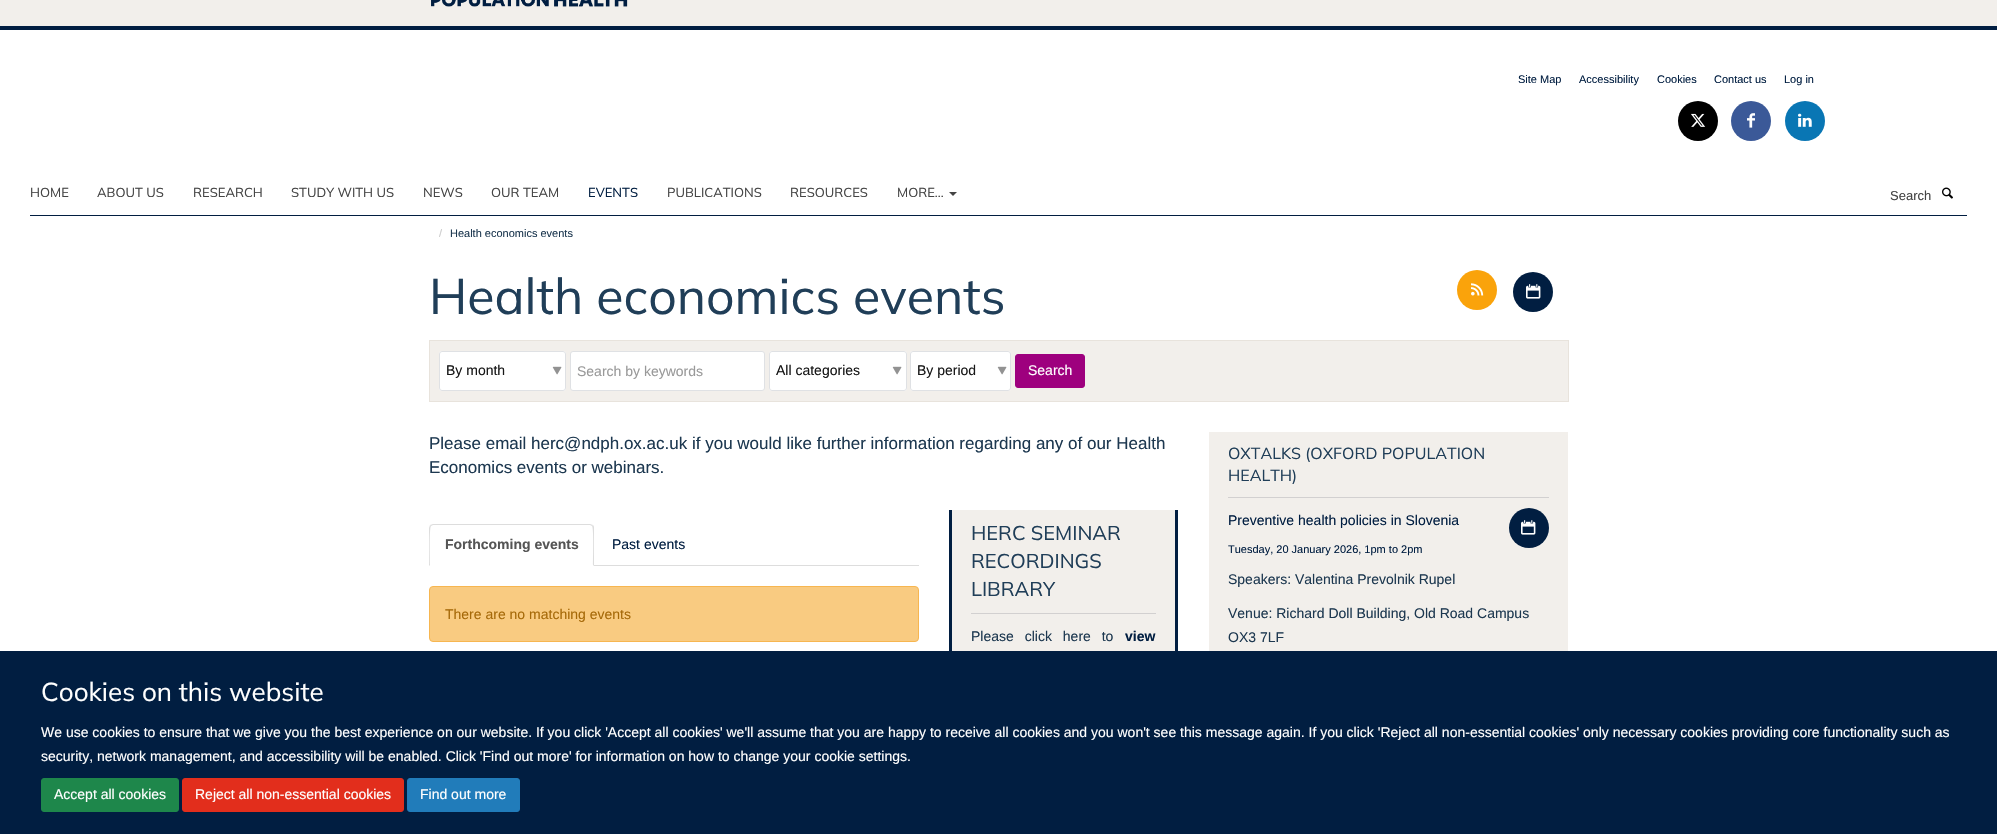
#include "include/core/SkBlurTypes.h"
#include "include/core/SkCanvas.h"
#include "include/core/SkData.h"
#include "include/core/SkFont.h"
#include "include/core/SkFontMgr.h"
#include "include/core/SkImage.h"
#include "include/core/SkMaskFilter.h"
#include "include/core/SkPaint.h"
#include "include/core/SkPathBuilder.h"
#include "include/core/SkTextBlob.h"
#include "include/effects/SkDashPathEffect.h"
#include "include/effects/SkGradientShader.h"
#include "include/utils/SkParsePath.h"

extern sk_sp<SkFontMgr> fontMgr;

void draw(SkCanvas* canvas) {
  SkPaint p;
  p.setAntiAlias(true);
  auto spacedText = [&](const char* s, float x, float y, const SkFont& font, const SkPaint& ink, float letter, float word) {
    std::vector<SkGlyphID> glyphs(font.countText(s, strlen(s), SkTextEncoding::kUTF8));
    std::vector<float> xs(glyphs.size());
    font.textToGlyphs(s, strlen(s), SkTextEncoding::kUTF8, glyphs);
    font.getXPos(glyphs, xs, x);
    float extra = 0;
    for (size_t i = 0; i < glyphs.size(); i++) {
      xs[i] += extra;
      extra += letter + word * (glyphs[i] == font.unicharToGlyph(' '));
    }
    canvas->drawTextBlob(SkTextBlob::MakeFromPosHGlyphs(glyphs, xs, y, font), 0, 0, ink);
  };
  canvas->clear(SK_ColorWHITE);
  p.setColor(SkColorSetRGB(242, 239, 235));
  canvas->drawRect(SkRect::MakeLTRB(0, 0, 1997, 26), p);
  p.setColor(SkColorSetRGB(1, 30, 65));
  canvas->drawRect(SkRect::MakeLTRB(0, 26, 1997, 30), p);
  canvas->drawImageRect(SkImages::DeferredFromEncodedData(SkData::MakeFromFileName("images/1.png")), SkRect::MakeLTRB(431, 0, 628, 7), SkSamplingOptions());
  p.setColor(SK_ColorBLACK);
  canvas->drawCircle(1698, 121, 20, p);
  canvas->drawImageRect(SkImages::DeferredFromEncodedData(SkData::MakeFromFileName("images/2.png")), SkRect::MakeLTRB(1691, 113, 1706, 127), SkSamplingOptions());
  p.setColor(SkColorSetRGB(59, 89, 152));
  canvas->drawCircle(1751, 121, 20, p);
  canvas->drawImageRect(SkImages::DeferredFromEncodedData(SkData::MakeFromFileName("images/3.png")), SkRect::MakeLTRB(1747, 113, 1755, 128), SkSamplingOptions());
  p.setColor(SkColorSetRGB(9, 118, 180));
  canvas->drawCircle(1805, 121, 20, p);
  canvas->drawImageRect(SkImages::DeferredFromEncodedData(SkData::MakeFromFileName("images/4.png")), SkRect::MakeLTRB(1798, 113, 1812, 127), SkSamplingOptions());
  p.setColor(SkColorSetRGB(1, 30, 65));
  canvas->drawRect(SkRect::MakeLTRB(30, 215, 1967, 216), p);
  p.setColor(SkColorSetRGB(68, 68, 68));
  canvas->drawPath(SkPathBuilder().moveTo(949, 192).lineTo(957, 192).lineTo(953, 196).close().detach(), p);
  canvas->drawImageRect(SkImages::DeferredFromEncodedData(SkData::MakeFromFileName("images/5.png")), SkRect::MakeLTRB(1942, 187, 1953, 199), SkSamplingOptions());
  p.setColor(SkColorSetRGB(250, 163, 11));
  canvas->drawCircle(1477, 290, 20, p);
  canvas->drawImageRect(SkImages::DeferredFromEncodedData(SkData::MakeFromFileName("images/6.png")), SkRect::MakeLTRB(1471, 283, 1484, 296), SkSamplingOptions());
  p.setColor(SkColorSetRGB(1, 30, 65));
  canvas->drawCircle(1533, 292, 20, p);
  canvas->drawImageRect(SkImages::DeferredFromEncodedData(SkData::MakeFromFileName("images/7.png")), SkRect::MakeLTRB(1526, 284, 1541, 299), SkSamplingOptions());
  p.setColor(SkColorSetRGB(242, 239, 235));
  canvas->drawRect(SkRect::MakeLTRB(429.5f, 340.5f, 1568.5f, 401.5f), p);
  p.setStyle(SkPaint::kStroke_Style);
  p.setStrokeWidth(1);
  p.setColor(SkColorSetRGB(232, 227, 220));
  canvas->drawRect(SkRect::MakeLTRB(429.5f, 340.5f, 1568.5f, 401.5f), p);
  p.setStyle(SkPaint::kFill_Style);
  p.setColor(SK_ColorWHITE);
  canvas->drawRoundRect(SkRect::MakeLTRB(439, 351, 566, 391), 3, 3, p);
  canvas->drawImageRect(SkImages::DeferredFromEncodedData(SkData::MakeFromFileName("images/8.png")), SkRect::MakeLTRB(552, 366, 562, 375), SkSamplingOptions());
  p.setStyle(SkPaint::kStroke_Style);
  p.setColor(SkColorSetRGB(223, 225, 228));
  canvas->drawRoundRect(SkRect::MakeLTRB(439.5f, 351.5f, 565.5f, 390.5f), 2.5f, 2.5f, p);
  p.setStyle(SkPaint::kFill_Style);
  p.setColor(SK_ColorWHITE);
  canvas->drawRoundRect(SkRect::MakeLTRB(570.5f, 351.5f, 764.5f, 390.5f), 2.5f, 2.5f, p);
  p.setStyle(SkPaint::kStroke_Style);
  p.setColor(SkColorSetRGB(223, 225, 228));
  canvas->drawRoundRect(SkRect::MakeLTRB(570.5f, 351.5f, 764.5f, 390.5f), 2.5f, 2.5f, p);
  p.setStyle(SkPaint::kFill_Style);
  p.setColor(SK_ColorWHITE);
  canvas->drawRoundRect(SkRect::MakeLTRB(769, 351, 907, 391), 3, 3, p);
  canvas->drawImageRect(SkImages::DeferredFromEncodedData(SkData::MakeFromFileName("images/8.png")), SkRect::MakeLTRB(892, 366, 902, 375), SkSamplingOptions());
  p.setStyle(SkPaint::kStroke_Style);
  p.setColor(SkColorSetRGB(223, 225, 228));
  canvas->drawRoundRect(SkRect::MakeLTRB(769.5f, 351.5f, 906.5f, 390.5f), 2.5f, 2.5f, p);
  p.setStyle(SkPaint::kFill_Style);
  p.setColor(SK_ColorWHITE);
  canvas->drawRoundRect(SkRect::MakeLTRB(910, 351, 1011, 391), 3, 3, p);
  canvas->drawImageRect(SkImages::DeferredFromEncodedData(SkData::MakeFromFileName("images/8.png")), SkRect::MakeLTRB(997, 366, 1007, 375), SkSamplingOptions());
  p.setStyle(SkPaint::kStroke_Style);
  p.setColor(SkColorSetRGB(223, 225, 228));
  canvas->drawRoundRect(SkRect::MakeLTRB(910.5f, 351.5f, 1010.5f, 390.5f), 2.5f, 2.5f, p);
  p.setStyle(SkPaint::kFill_Style);
  p.setColor(SkColorSetRGB(158, 0, 126));
  canvas->drawRoundRect(SkRect::MakeLTRB(1015.5f, 354.5f, 1084.5f, 387.5f), 2.5f, 2.5f, p);
  p.setStyle(SkPaint::kStroke_Style);
  canvas->drawRoundRect(SkRect::MakeLTRB(1015.5f, 354.5f, 1084.5f, 387.5f), 2.5f, 2.5f, p);
  p.setStyle(SkPaint::kFill_Style);
  p.setColor(SkColorSetRGB(221, 221, 221));
  canvas->drawRect(SkRect::MakeLTRB(594, 565, 919, 566), p);
  canvas->drawPath(SkPathBuilder().moveTo(433, 524).lineTo(430, 525).lineTo(431, 526).lineTo(433, 525).lineTo(590, 525).lineTo(592, 526).lineTo(593, 525).lineTo(590, 524).close().detach(), p);
  canvas->drawPath(SkPathBuilder().moveTo(594, 566).lineTo(594, 528).cubicTo(594, 527, 594, 526, 593, 525).lineTo(592, 526).cubicTo(594, 528, 593, 560, 593, 565).close().detach(), p);
  canvas->drawPath(SkPathBuilder().moveTo(429, 566).lineTo(430, 565).cubicTo(430, 560, 429, 528, 431, 526).lineTo(430, 525).lineTo(429, 528).close().detach(), p);
  p.setColor(SkColorSetRGB(249, 203, 129));
  canvas->drawRoundRect(SkRect::MakeLTRB(429.5f, 586.5f, 918.5f, 641.5f), 3.5f, 3.5f, p);
  p.setStyle(SkPaint::kStroke_Style);
  p.setColor(SkColorSetRGB(247, 182, 80));
  canvas->drawRoundRect(SkRect::MakeLTRB(429.5f, 586.5f, 918.5f, 641.5f), 3.5f, 3.5f, p);
  p.setStyle(SkPaint::kFill_Style);
  p.setColor(SkColorSetRGB(242, 239, 235));
  canvas->drawRect(SkRect::MakeLTRB(952, 510, 1175, 651), p);
  p.setColor(SkColorSetRGB(1, 30, 65));
  canvas->drawRect(SkRect::MakeLTRB(1175, 510, 1178, 651), p);
  canvas->drawRect(SkRect::MakeLTRB(949, 510, 952, 651), p);
  p.setColor(SkColorSetRGB(210, 208, 208));
  canvas->drawRect(SkRect::MakeLTRB(971, 613, 1156, 614), p);
  p.setColor(SkColorSetRGB(242, 239, 235));
  canvas->drawRect(SkRect::MakeLTRB(1209, 432, 1568, 651), p);
  p.setColor(SkColorSetRGB(210, 208, 208));
  canvas->drawRect(SkRect::MakeLTRB(1228, 497, 1549, 498), p);
  p.setColor(SkColorSetRGB(1, 30, 65));
  canvas->drawCircle(1529, 528, 20, p);
  canvas->drawImageRect(SkImages::DeferredFromEncodedData(SkData::MakeFromFileName("images/7.png")), SkRect::MakeLTRB(1521, 520, 1536, 535), SkSamplingOptions());
  canvas->drawRect(SkRect::MakeLTRB(0, 651, 1997, 834), p);
  p.setColor(SkColorSetRGB(30, 135, 75));
  canvas->drawRoundRect(SkRect::MakeLTRB(41.5f, 778.5f, 178.5f, 811.5f), 2.5f, 2.5f, p);
  p.setStyle(SkPaint::kStroke_Style);
  canvas->drawRoundRect(SkRect::MakeLTRB(41.5f, 778.5f, 178.5f, 811.5f), 2.5f, 2.5f, p);
  p.setStyle(SkPaint::kFill_Style);
  p.setColor(SkColorSetRGB(226, 46, 28));
  canvas->drawRoundRect(SkRect::MakeLTRB(182.5f, 778.5f, 403.5f, 811.5f), 2.5f, 2.5f, p);
  p.setStyle(SkPaint::kStroke_Style);
  canvas->drawRoundRect(SkRect::MakeLTRB(182.5f, 778.5f, 403.5f, 811.5f), 2.5f, 2.5f, p);
  p.setStyle(SkPaint::kFill_Style);
  p.setColor(SkColorSetRGB(33, 124, 186));
  canvas->drawRoundRect(SkRect::MakeLTRB(407.5f, 778.5f, 519.5f, 811.5f), 2.5f, 2.5f, p);
  p.setStyle(SkPaint::kStroke_Style);
  canvas->drawRoundRect(SkRect::MakeLTRB(407.5f, 778.5f, 519.5f, 811.5f), 2.5f, 2.5f, p);
  SkFont font1(fontMgr->matchFamilyStyle("Liberation Sans", SkFontStyle::Normal()), 11);
  font1.setSubpixel(true);
  p.setStyle(SkPaint::kFill_Style);
  p.setColor(SkColorSetRGB(1, 30, 65));
  canvas->drawString("Site Map", 1518, 83, font1, p);
  canvas->drawString("Accessibility", 1579, 83, font1, p);
  canvas->drawString("Cookies", 1657, 83, font1, p);
  canvas->drawString("Contact us", 1714, 83, font1, p);
  canvas->drawString("Log in", 1784, 83, font1, p);
  SkFont font2(fontMgr->matchFamilyStyle("Mulish", SkFontStyle::Normal()), 13);
  font2.setSubpixel(true);
  p.setColor(SkColorSetRGB(68, 68, 68));
  canvas->drawString("HOME", 30, 197, font2, p);
  canvas->drawString("ABOUT US", 97, 197, font2, p);
  canvas->drawString("RESEARCH", 193, 197, font2, p);
  canvas->drawString("STUDY WITH US", 291, 197, font2, p);
  canvas->drawString("NEWS", 423, 197, font2, p);
  canvas->drawString("OUR TEAM", 491, 197, font2, p);
  p.setColor(SkColorSetRGB(1, 30, 65));
  canvas->drawString("EVENTS", 588, 197, font2, p);
  p.setColor(SkColorSetRGB(68, 68, 68));
  canvas->drawString("PUBLICATIONS", 667, 197, font2, p);
  canvas->drawString("RESOURCES", 790, 197, font2, p);
  canvas->drawString("MORE...", 897, 197, font2, p);
  SkFont font3(fontMgr->matchFamilyStyle("Liberation Sans", SkFontStyle::Normal()), 13);
  font3.setSubpixel(true);
  canvas->drawString("Search", 1890, 200, font3, p);
  p.setColor(SkColorSetRGB(204, 204, 204));
  canvas->drawString("/", 439, 237, font1, p);
  p.setColor(SkColorSetRGB(29, 56, 80));
  canvas->drawString("Health economics events", 450, 237, font1, p);
  SkFont font4(fontMgr->matchFamilyStyle("Mulish", SkFontStyle::Normal()), 50);
  font4.setSubpixel(true);
  p.setColor(SkColorSetRGB(32, 62, 88));
  canvas->drawString("Health economics events", 429, 314, font4, p);
  SkFont font5(fontMgr->matchFamilyStyle("Liberation Sans", SkFontStyle::Normal()), 14);
  font5.setSubpixel(true);
  p.setColor(SkColorSetRGB(23, 23, 23));
  canvas->drawString("By month", 446, 375, font5, p);
  p.setColor(SkColorSetRGB(153, 153, 153));
  canvas->drawString("Search by keywords", 577, 376, font5, p);
  p.setColor(SkColorSetRGB(23, 23, 23));
  canvas->drawString("All categories", 776, 375, font5, p);
  canvas->drawString("By period", 917, 375, font5, p);
  p.setColor(SK_ColorWHITE);
  canvas->drawString("Search", 1028, 375, font5, p);
  SkFont font6(fontMgr->matchFamilyStyle("Liberation Sans", SkFontStyle::Normal()), 17);
  font6.setSubpixel(true);
  p.setColor(SkColorSetRGB(29, 56, 80));
  canvas->drawString("Please email herc@ndph.ox.ac.uk if you would like further information regarding any of our Health", 429, 449, font6, p);
  canvas->drawString("Economics events or webinars.", 429, 473, font6, p);
  SkFont font7(fontMgr->matchFamilyStyle("Liberation Sans", SkFontStyle::Bold()), 14);
  font7.setSubpixel(true);
  p.setColor(SkColorSetRGB(85, 85, 85));
  canvas->drawString("Forthcoming events", 445, 549, font7, p);
  p.setColor(SkColorSetRGB(1, 30, 65));
  canvas->drawString("Past events", 612, 549, font5, p);
  p.setColor(SkColorSetRGB(166, 105, 8));
  canvas->drawString("There are no matching events", 445, 619, font5, p);
  SkFont font8(fontMgr->matchFamilyStyle("Mulish", SkFontStyle::Normal()), 20);
  font8.setSubpixel(true);
  p.setColor(SkColorSetRGB(32, 62, 88));
  canvas->drawString("HERC SEMINAR", 971, 540, font8, p);
  canvas->drawString("RECORDINGS", 971, 568, font8, p);
  canvas->drawString("LIBRARY", 971, 596, font8, p);
  p.setColor(SkColorSetRGB(29, 56, 80));
  spacedText("Please click here to", 971, 641, font5, p, 0, 7);
  p.setColor(SkColorSetRGB(1, 30, 65));
  canvas->drawString("view", 1125, 641, font7, p);
  SkFont font9(fontMgr->matchFamilyStyle("Mulish", SkFontStyle::Normal()), 16);
  font9.setSubpixel(true);
  p.setColor(SkColorSetRGB(32, 62, 88));
  canvas->drawString("OXTALKS (OXFORD POPULATION", 1228, 459, font9, p);
  canvas->drawString("HEALTH)", 1228, 481, font9, p);
  p.setColor(SkColorSetRGB(1, 30, 65));
  canvas->drawString("Preventive health policies in Slovenia", 1228, 525, font5, p);
  canvas->drawString("Tuesday, 20 January 2026, 1pm to 2pm", 1228, 553, font1, p);
  p.setColor(SkColorSetRGB(29, 56, 80));
  canvas->drawString("Speakers: Valentina Prevolnik Rupel", 1228, 584, font5, p);
  canvas->drawString("Venue: Richard Doll Building, Old Road Campus", 1228, 618, font5, p);
  canvas->drawString("OX3 7LF", 1228, 642, font5, p);
  SkFont font10(fontMgr->matchFamilyStyle("Mulish", SkFontStyle::Normal()), 26);
  font10.setSubpixel(true);
  p.setColor(SK_ColorWHITE);
  canvas->drawString("Cookies on this website", 41, 701, font10, p);
  canvas->drawString("We use cookies to ensure that we give you the best experience on our website. If you click 'Accept all cookies' we'll assume that you are happy to receive all cookies and you won't see this message again. If you click 'Reject all non-essential cookies' only necessary cookies providing core functionality such as", 41, 737, font5, p);
  canvas->drawString("security, network management, and accessibility will be enabled. Click 'Find out more' for information on how to change your cookie settings.", 41, 761, font5, p);
  canvas->drawString("Accept all cookies", 54, 799, font5, p);
  canvas->drawString("Reject all non-essential cookies", 195, 799, font5, p);
  canvas->drawString("Find out more", 420, 799, font5, p);
}
